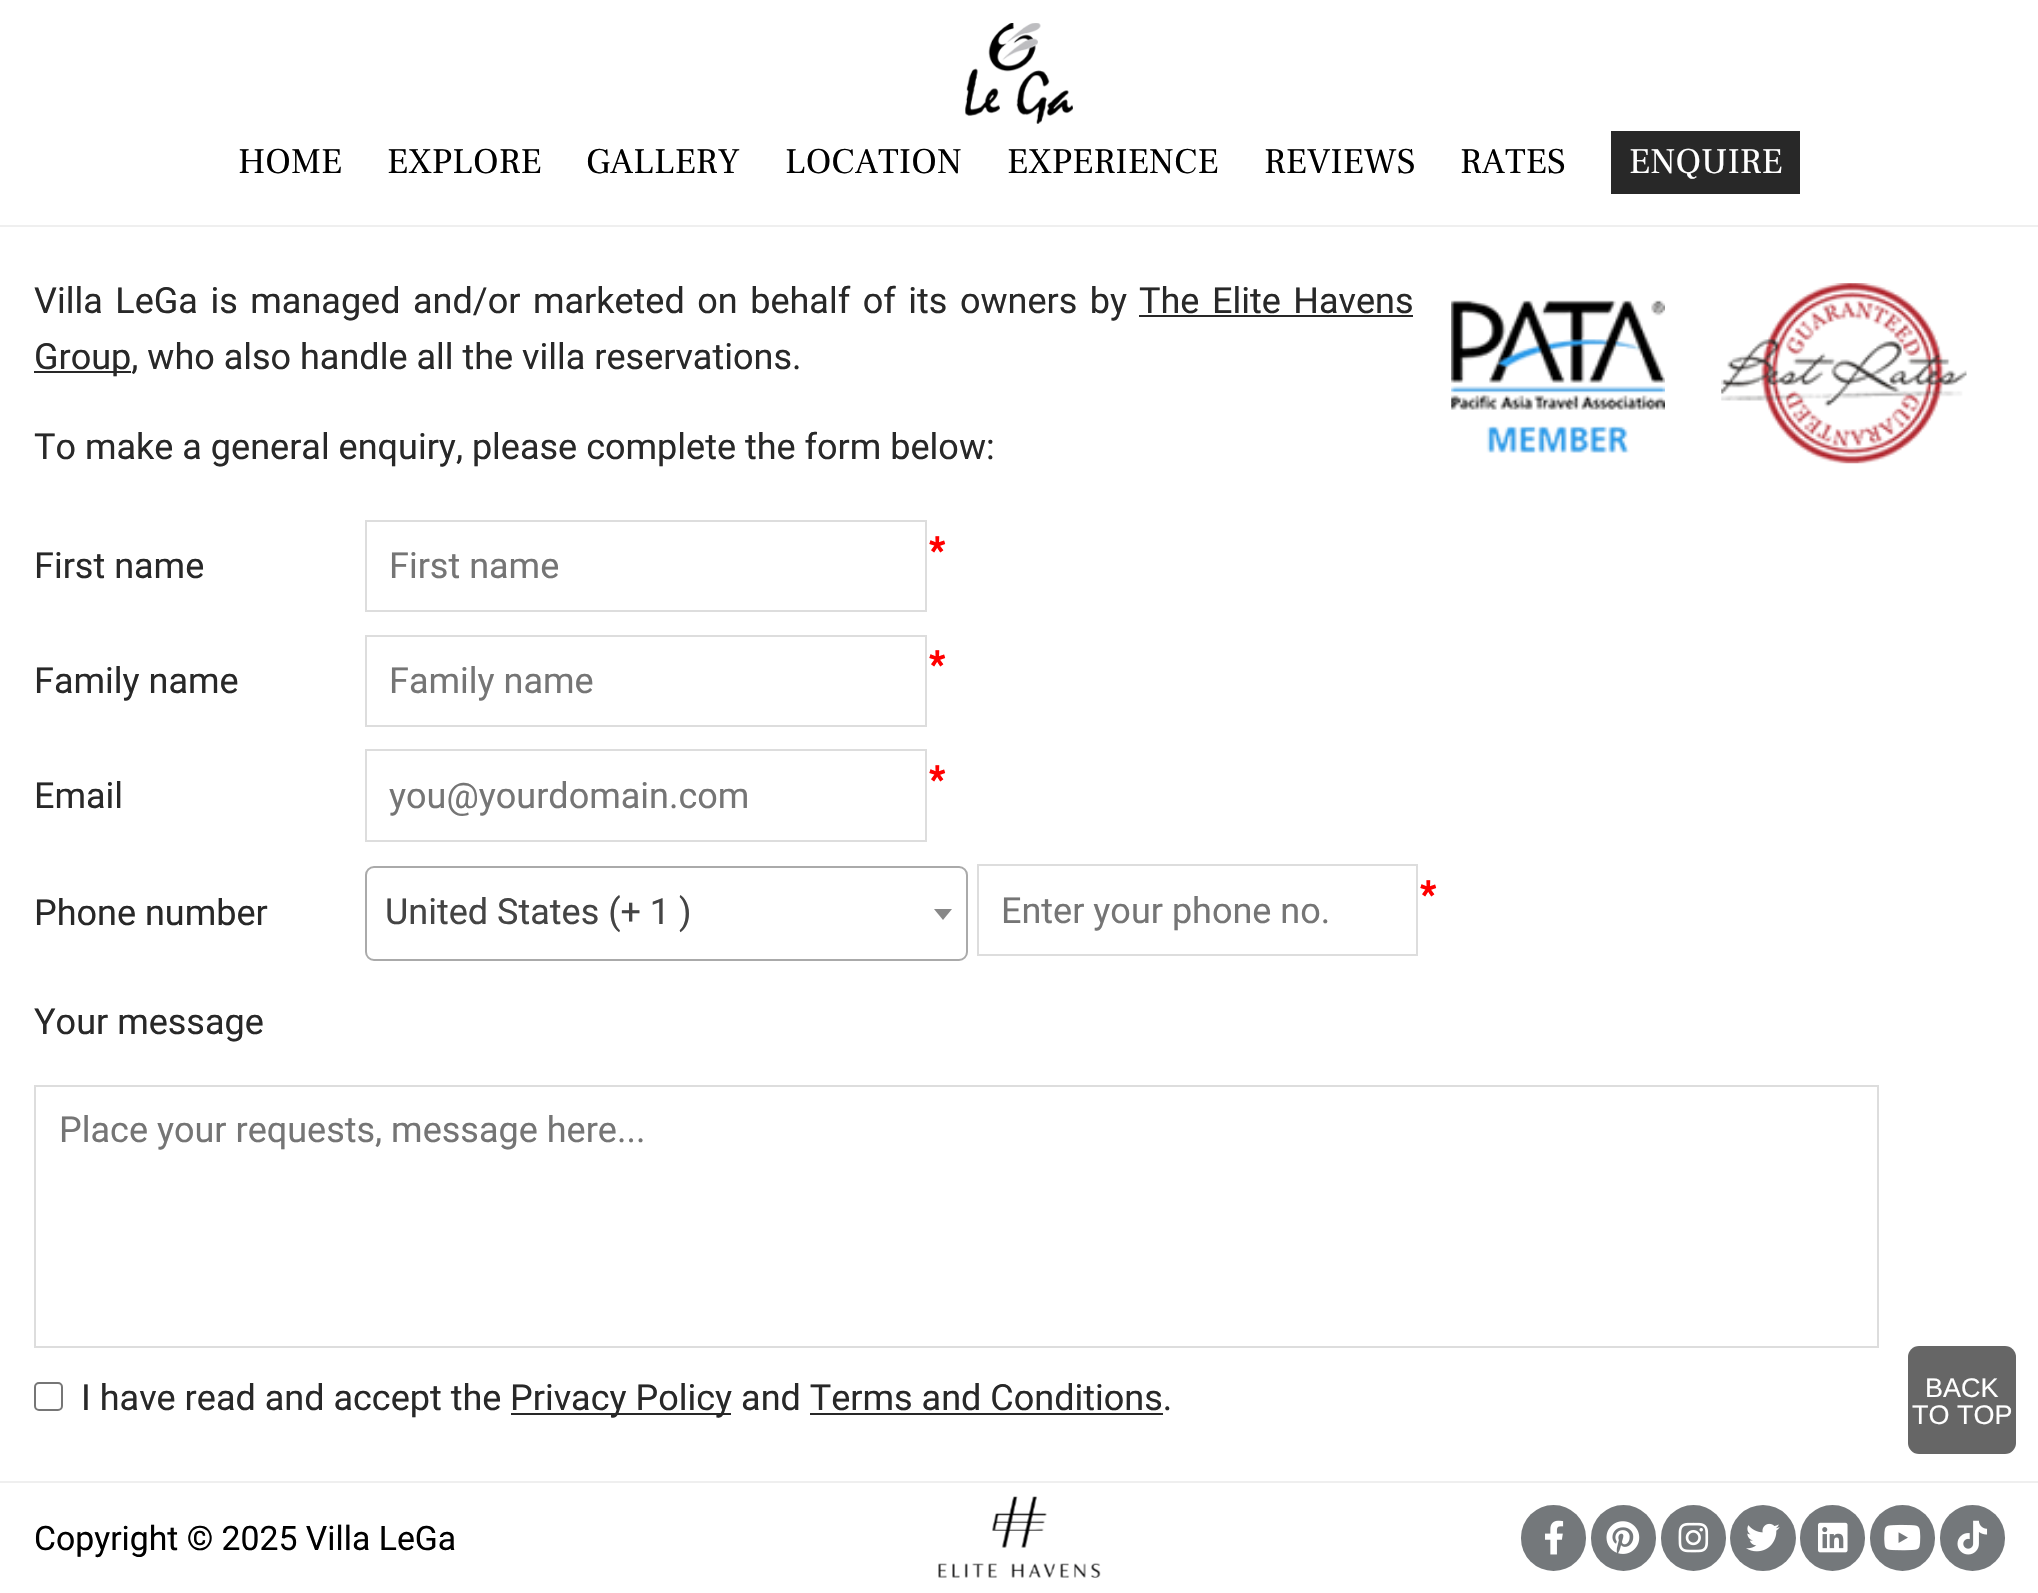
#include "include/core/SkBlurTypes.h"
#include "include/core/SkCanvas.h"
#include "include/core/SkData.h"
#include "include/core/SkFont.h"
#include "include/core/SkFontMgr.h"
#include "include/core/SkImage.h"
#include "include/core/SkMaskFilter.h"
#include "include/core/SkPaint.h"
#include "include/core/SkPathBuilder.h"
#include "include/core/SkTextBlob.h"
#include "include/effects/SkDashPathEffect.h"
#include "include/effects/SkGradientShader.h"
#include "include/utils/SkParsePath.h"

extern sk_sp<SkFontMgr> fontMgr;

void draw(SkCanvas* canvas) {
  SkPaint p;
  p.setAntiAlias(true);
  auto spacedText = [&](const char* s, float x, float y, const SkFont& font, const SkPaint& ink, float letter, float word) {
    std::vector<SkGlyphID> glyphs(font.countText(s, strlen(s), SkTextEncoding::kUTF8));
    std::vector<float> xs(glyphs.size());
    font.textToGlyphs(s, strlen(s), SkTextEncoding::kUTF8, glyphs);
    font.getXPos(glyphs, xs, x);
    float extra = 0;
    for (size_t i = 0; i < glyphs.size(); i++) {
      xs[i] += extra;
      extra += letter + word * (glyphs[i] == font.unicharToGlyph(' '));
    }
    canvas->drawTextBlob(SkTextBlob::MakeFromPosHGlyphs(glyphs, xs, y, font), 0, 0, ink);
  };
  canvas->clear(SK_ColorWHITE);
  p.setColor(SkColorSetRGB(239, 239, 239));
  canvas->drawRect(SkRect::MakeLTRB(0, 225, 2038, 227), p);
  canvas->drawImageRect(SkImages::DeferredFromEncodedData(SkData::MakeFromFileName("images/1.png")), SkRect::MakeLTRB(965, 23, 1073, 124), SkSamplingOptions());
  p.setColor(SkColorSetRGB(40, 40, 40));
  canvas->drawRect(SkRect::MakeLTRB(1611, 131, 1800, 194), p);
  canvas->drawRect(SkRect::MakeLTRB(1139, 315, 1413, 317), p);
  canvas->drawRect(SkRect::MakeLTRB(34, 371, 131, 373), p);
  canvas->drawImageRect(SkImages::DeferredFromEncodedData(SkData::MakeFromFileName("images/2.png")), SkRect::MakeLTRB(1451, 300, 1665, 453), SkSamplingOptions());
  canvas->drawImageRect(SkImages::DeferredFromEncodedData(SkData::MakeFromFileName("images/3.png")), SkRect::MakeLTRB(1721, 283, 1967, 464), SkSamplingOptions());
  p.setStyle(SkPaint::kStroke_Style);
  p.setStrokeWidth(2);
  p.setColor(SkColorSetRGB(221, 221, 221));
  canvas->drawRect(SkRect::MakeLTRB(366, 521, 926, 611), p);
  canvas->drawRect(SkRect::MakeLTRB(366, 636, 926, 726), p);
  canvas->drawRect(SkRect::MakeLTRB(366, 750, 926, 841), p);
  p.setColor(SkColorSetRGB(170, 170, 170));
  canvas->drawRoundRect(SkRect::MakeLTRB(366, 867, 967, 960), 8, 8, p);
  p.setStyle(SkPaint::kFill_Style);
  p.setColor(SkColorSetRGB(136, 136, 136));
  canvas->drawPath(SkPathBuilder().moveTo(934, 909).lineTo(952, 909).lineTo(943, 920).close().detach(), p);
  p.setStyle(SkPaint::kStroke_Style);
  p.setColor(SkColorSetRGB(221, 221, 221));
  canvas->drawRect(SkRect::MakeLTRB(978, 865, 1417, 955), p);
  canvas->drawRect(SkRect::MakeLTRB(35, 1086, 1878, 1347), p);
  p.setColor(SkColorSetRGB(118, 118, 118));
  canvas->drawRoundRect(SkRect::MakeLTRB(35, 1383, 62, 1410), 4, 4, p);
  p.setStyle(SkPaint::kFill_Style);
  p.setColor(SkColorSetRGB(40, 40, 40));
  canvas->drawRect(SkRect::MakeLTRB(511, 1413, 731, 1415), p);
  canvas->drawRect(SkRect::MakeLTRB(810, 1413, 1163, 1415), p);
  p.setColor(SkColorSetRGB(102, 102, 102));
  canvas->drawRoundRect(SkRect::MakeLTRB(1908, 1346, 2016, 1454), 11, 11, p);
  p.setColor(SkColorSetRGB(239, 239, 239));
  canvas->drawRect(SkRect::MakeLTRB(0, 1481, 2038, 1483), p);
  p.setColor(SkColorSetRGB(116, 120, 123));
  canvas->drawRoundRect(SkRect::MakeLTRB(1521, 1505, 1586, 1571), 32.5f, 32.5f, p);
  canvas->drawImageRect(SkImages::DeferredFromEncodedData(SkData::MakeFromFileName("images/4.png")), SkRect::MakeLTRB(1545, 1520, 1564, 1555), SkSamplingOptions());
  canvas->drawRoundRect(SkRect::MakeLTRB(1591, 1505, 1656, 1571), 32.5f, 32.5f, p);
  canvas->drawImageRect(SkImages::DeferredFromEncodedData(SkData::MakeFromFileName("images/5.png")), SkRect::MakeLTRB(1606, 1521, 1640, 1554), SkSamplingOptions());
  canvas->drawRoundRect(SkRect::MakeLTRB(1661, 1505, 1726, 1571), 32.5f, 32.5f, p);
  canvas->drawImageRect(SkImages::DeferredFromEncodedData(SkData::MakeFromFileName("images/6.png")), SkRect::MakeLTRB(1678, 1522, 1709, 1553), SkSamplingOptions());
  canvas->drawCircle(1763, 1538, 33, p);
  canvas->drawImageRect(SkImages::DeferredFromEncodedData(SkData::MakeFromFileName("images/7.png")), SkRect::MakeLTRB(1746, 1523, 1780, 1552), SkSamplingOptions());
  canvas->drawRoundRect(SkRect::MakeLTRB(1800, 1505, 1865, 1571), 32.5f, 32.5f, p);
  canvas->drawImageRect(SkImages::DeferredFromEncodedData(SkData::MakeFromFileName("images/8.png")), SkRect::MakeLTRB(1818, 1522, 1848, 1553), SkSamplingOptions());
  canvas->drawRoundRect(SkRect::MakeLTRB(1870, 1505, 1935, 1571), 32.5f, 32.5f, p);
  canvas->drawImageRect(SkImages::DeferredFromEncodedData(SkData::MakeFromFileName("images/9.png")), SkRect::MakeLTRB(1884, 1524, 1921, 1551), SkSamplingOptions());
  canvas->drawRoundRect(SkRect::MakeLTRB(1940, 1505, 2005, 1571), 32.5f, 32.5f, p);
  canvas->drawImageRect(SkImages::DeferredFromEncodedData(SkData::MakeFromFileName("images/10.png")), SkRect::MakeLTRB(1957, 1520, 1988, 1555), SkSamplingOptions());
  canvas->drawImageRect(SkImages::DeferredFromEncodedData(SkData::MakeFromFileName("images/11.png")), SkRect::MakeLTRB(938, 1496, 1101, 1578), SkSamplingOptions());
  SkFont font1(fontMgr->matchFamilyStyle("Frank Ruhl Libre", SkFontStyle::Normal()), 36);
  font1.setSubpixel(true);
  p.setColor(SK_ColorBLACK);
  canvas->drawString("HOME", 238, 173, font1, p);
  canvas->drawString("EXPLORE", 387, 173, font1, p);
  canvas->drawString("GALLERY", 586, 173, font1, p);
  canvas->drawString("LOCATION", 785, 173, font1, p);
  canvas->drawString("EXPERIENCE", 1007, 173, font1, p);
  canvas->drawString("REVIEWS", 1264, 173, font1, p);
  canvas->drawString("RATES", 1460, 173, font1, p);
  p.setColor(SK_ColorWHITE);
  canvas->drawString("ENQUIRE", 1629, 173, font1, p);
  SkFont font2(fontMgr->matchFamilyStyle("Roboto", SkFontStyle::Normal()), 36);
  font2.setSubpixel(true);
  p.setColor(SkColorSetRGB(40, 40, 40));
  spacedText("Villa LeGa is managed and/or marketed on behalf of its owners by", 34, 313, font2, p, 0, 3.6f);
  spacedText("The Elite Havens", 1139, 313, font2, p, 0, 3.6f);
  canvas->drawString("Group, who also handle all the villa reservations.", 34, 369, font2, p);
  canvas->drawString("To make a general enquiry, please complete the form below:", 34, 459, font2, p);
  canvas->drawString("First name", 34, 578, font2, p);
  SkFont font3(fontMgr->matchFamilyStyle("Roboto", SkFontStyle::Bold()), 36);
  font3.setSubpixel(true);
  p.setColor(SkColorSetRGB(255, 0, 0));
  canvas->drawString("*", 929, 563, font3, p);
  p.setColor(SkColorSetRGB(117, 117, 117));
  canvas->drawString("First name", 389, 578, font2, p);
  p.setColor(SkColorSetRGB(40, 40, 40));
  canvas->drawString("Family name", 34, 693, font2, p);
  p.setColor(SkColorSetRGB(255, 0, 0));
  canvas->drawString("*", 929, 677, font3, p);
  p.setColor(SkColorSetRGB(117, 117, 117));
  canvas->drawString("Family name", 389, 693, font2, p);
  p.setColor(SkColorSetRGB(40, 40, 40));
  canvas->drawString("Email", 34, 808, font2, p);
  p.setColor(SkColorSetRGB(255, 0, 0));
  canvas->drawString("*", 929, 792, font3, p);
  p.setColor(SkColorSetRGB(117, 117, 117));
  canvas->drawString("you@yourdomain.com", 389, 808, font2, p);
  p.setColor(SkColorSetRGB(40, 40, 40));
  canvas->drawString("Phone number", 34, 925, font2, p);
  p.setColor(SkColorSetRGB(255, 0, 0));
  canvas->drawString("*", 1420, 907, font3, p);
  p.setColor(SkColorSetRGB(68, 68, 68));
  canvas->drawString("United States (+ 1 )", 385, 924, font2, p);
  p.setColor(SkColorSetRGB(117, 117, 117));
  canvas->drawString("Enter your phone no.", 1001, 923, font2, p);
  p.setColor(SkColorSetRGB(40, 40, 40));
  canvas->drawString("Your message", 34, 1034, font2, p);
  p.setColor(SkColorSetRGB(117, 117, 117));
  canvas->drawString("Place your requests, message here...", 59, 1142, font2, p);
  p.setColor(SkColorSetRGB(40, 40, 40));
  canvas->drawString("I have read and accept the", 81, 1410, font2, p);
  canvas->drawString("Privacy Policy and Terms and Conditions.", 510, 1410, font2, p);
  SkFont font4(fontMgr->matchFamilyStyle("Liberation Sans", SkFontStyle::Normal()), 27);
  font4.setSubpixel(true);
  p.setColor(SK_ColorWHITE);
  canvas->drawString("BACK", 1925, 1397, font4, p);
  canvas->drawString("TO TOP", 1912, 1424, font4, p);
  SkFont font5(fontMgr->matchFamilyStyle("Roboto", SkFontStyle::Normal()), 33.75f);
  font5.setSubpixel(true);
  p.setColor(SK_ColorBLACK);
  canvas->drawString("Copyright © 2025 Villa LeGa", 34, 1550, font5, p);
}
